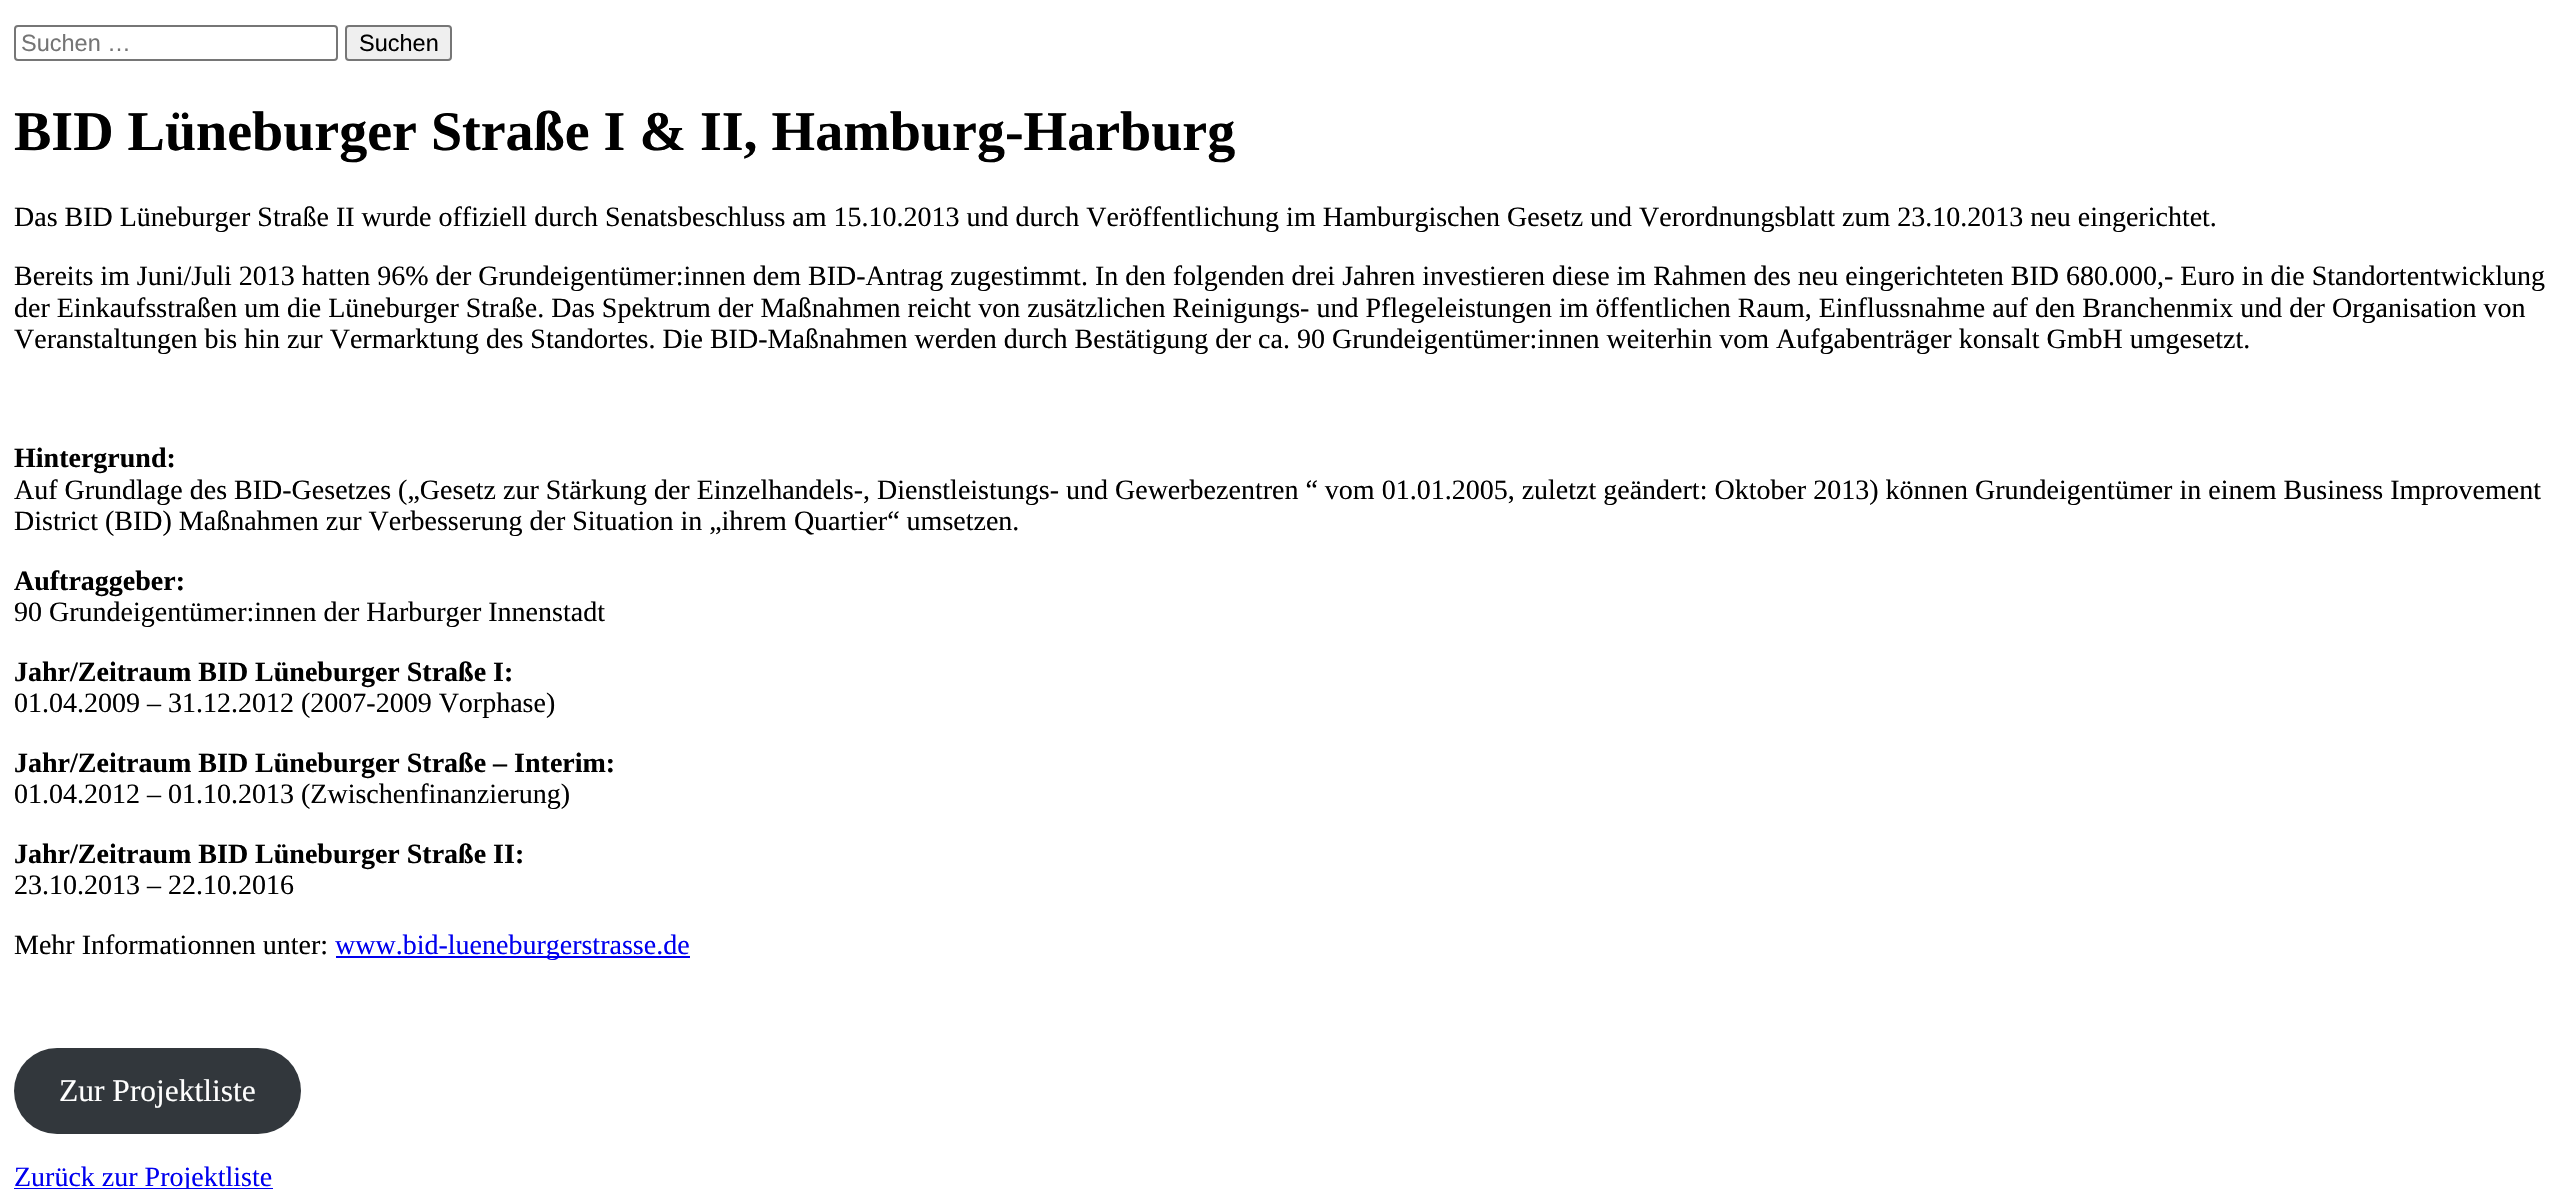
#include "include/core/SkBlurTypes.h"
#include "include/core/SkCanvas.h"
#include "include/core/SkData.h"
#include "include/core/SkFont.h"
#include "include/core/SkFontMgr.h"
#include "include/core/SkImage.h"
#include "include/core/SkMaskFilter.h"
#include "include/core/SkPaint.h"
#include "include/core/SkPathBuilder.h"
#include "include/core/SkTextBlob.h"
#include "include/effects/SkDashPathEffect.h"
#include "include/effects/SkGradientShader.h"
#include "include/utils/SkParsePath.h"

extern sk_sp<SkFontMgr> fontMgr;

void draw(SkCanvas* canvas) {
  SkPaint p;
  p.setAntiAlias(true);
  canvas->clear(SK_ColorWHITE);
  p.setStyle(SkPaint::kStroke_Style);
  p.setStrokeWidth(2);
  p.setColor(SkColorSetRGB(118, 118, 118));
  canvas->drawRoundRect(SkRect::MakeLTRB(15, 26, 337, 60), 3, 3, p);
  p.setStyle(SkPaint::kFill_Style);
  p.setColor(SkColorSetRGB(239, 239, 239));
  canvas->drawRoundRect(SkRect::MakeLTRB(346, 26, 451, 60), 3, 3, p);
  p.setStyle(SkPaint::kStroke_Style);
  p.setColor(SkColorSetRGB(118, 118, 118));
  canvas->drawRoundRect(SkRect::MakeLTRB(346, 26, 451, 60), 3, 3, p);
  p.setStyle(SkPaint::kFill_Style);
  p.setColor(SkColorSetRGB(0, 0, 238));
  canvas->drawRect(SkRect::MakeLTRB(336, 956, 690, 958), p);
  p.setColor(SkColorSetRGB(50, 55, 60));
  canvas->drawRoundRect(SkRect::MakeLTRB(14, 1048, 301, 1134), 43, 43, p);
  p.setColor(SkColorSetRGB(0, 0, 238));
  canvas->drawRect(SkRect::MakeLTRB(14, 1188, 273, 1189), p);
  SkFont font1(fontMgr->matchFamilyStyle("Liberation Sans", SkFontStyle::Normal()), 23.5f);
  font1.setSubpixel(true);
  p.setColor(SkColorSetRGB(117, 117, 117));
  canvas->drawString("Suchen …", 21, 51, font1, p);
  p.setColor(SK_ColorBLACK);
  canvas->drawString("Suchen", 359, 51, font1, p);
  SkFont font2(fontMgr->matchFamilyStyle("Liberation Serif", SkFontStyle::Bold()), 56);
  font2.setSubpixel(true);
  canvas->drawString("BID Lüneburger Straße I & II, Hamburg-Harburg", 14, 150, font2, p);
  SkFont font3(fontMgr->matchFamilyStyle("Liberation Serif", SkFontStyle::Normal()), 28);
  font3.setSubpixel(true);
  canvas->drawString("Das BID Lüneburger Straße II wurde offiziell durch Senatsbeschluss am 15.10.2013 und durch Veröffentlichung im Hamburgischen Gesetz und Verordnungsblatt zum 23.10.2013 neu eingerichtet.", 14, 226, font3, p);
  canvas->drawString("Bereits im Juni/Juli 2013 hatten 96% der Grundeigentümer:innen dem BID-Antrag zugestimmt. In den folgenden drei Jahren investieren diese im Rahmen des neu eingerichteten BID 680.000,- Euro in die Standortentwicklung", 14, 285, font3, p);
  canvas->drawString("der Einkaufsstraßen um die Lüneburger Straße. Das Spektrum der Maßnahmen reicht von zusätzlichen Reinigungs- und Pflegeleistungen im öffentlichen Raum, Einflussnahme auf den Branchenmix und der Organisation von", 14, 317, font3, p);
  canvas->drawString("Veranstaltungen bis hin zur Vermarktung des Standortes. Die BID-Maßnahmen werden durch Bestätigung der ca. 90 Grundeigentümer:innen weiterhin vom Aufgabenträger konsalt GmbH umgesetzt.", 14, 348, font3, p);
  SkFont font4(fontMgr->matchFamilyStyle("Liberation Serif", SkFontStyle::Bold()), 28);
  font4.setSubpixel(true);
  canvas->drawString("Hintergrund:", 14, 467, font4, p);
  canvas->drawString("Auf Grundlage des BID-Gesetzes („Gesetz zur Stärkung der Einzelhandels-, Dienstleistungs- und Gewerbezentren “ vom 01.01.2005, zuletzt geändert: Oktober 2013) können Grundeigentümer in einem Business Improvement", 14, 499, font3, p);
  canvas->drawString("District (BID) Maßnahmen zur Verbesserung der Situation in „ihrem Quartier“ umsetzen.", 14, 530, font3, p);
  canvas->drawString("Auftraggeber:", 14, 590, font4, p);
  canvas->drawString("90 Grundeigentümer:innen der Harburger Innenstadt", 14, 621, font3, p);
  canvas->drawString("Jahr/Zeitraum BID Lüneburger Straße I:", 14, 681, font4, p);
  canvas->drawString("01.04.2009 – 31.12.2012 (2007-2009 Vorphase)", 14, 712, font3, p);
  canvas->drawString("Jahr/Zeitraum BID Lüneburger Straße – Interim:", 14, 772, font4, p);
  canvas->drawString("01.04.2012 – 01.10.2013 (Zwischenfinanzierung)", 14, 803, font3, p);
  canvas->drawString("Jahr/Zeitraum BID Lüneburger Straße II:", 14, 863, font4, p);
  canvas->drawString("23.10.2013 – 22.10.2016", 14, 894, font3, p);
  canvas->drawString("Mehr Informationnen unter:", 14, 954, font3, p);
  p.setColor(SkColorSetRGB(0, 0, 238));
  canvas->drawString("www.bid-lueneburgerstrasse.de", 335, 954, font3, p);
  SkFont font5(fontMgr->matchFamilyStyle("Liberation Serif", SkFontStyle::Normal()), 31.5f);
  font5.setSubpixel(true);
  p.setColor(SK_ColorWHITE);
  canvas->drawString("Zur Projektliste", 59, 1101, font5, p);
  p.setColor(SkColorSetRGB(0, 0, 238));
  canvas->drawString("Zurück zur Projektliste", 14, 1186, font3, p);
}
